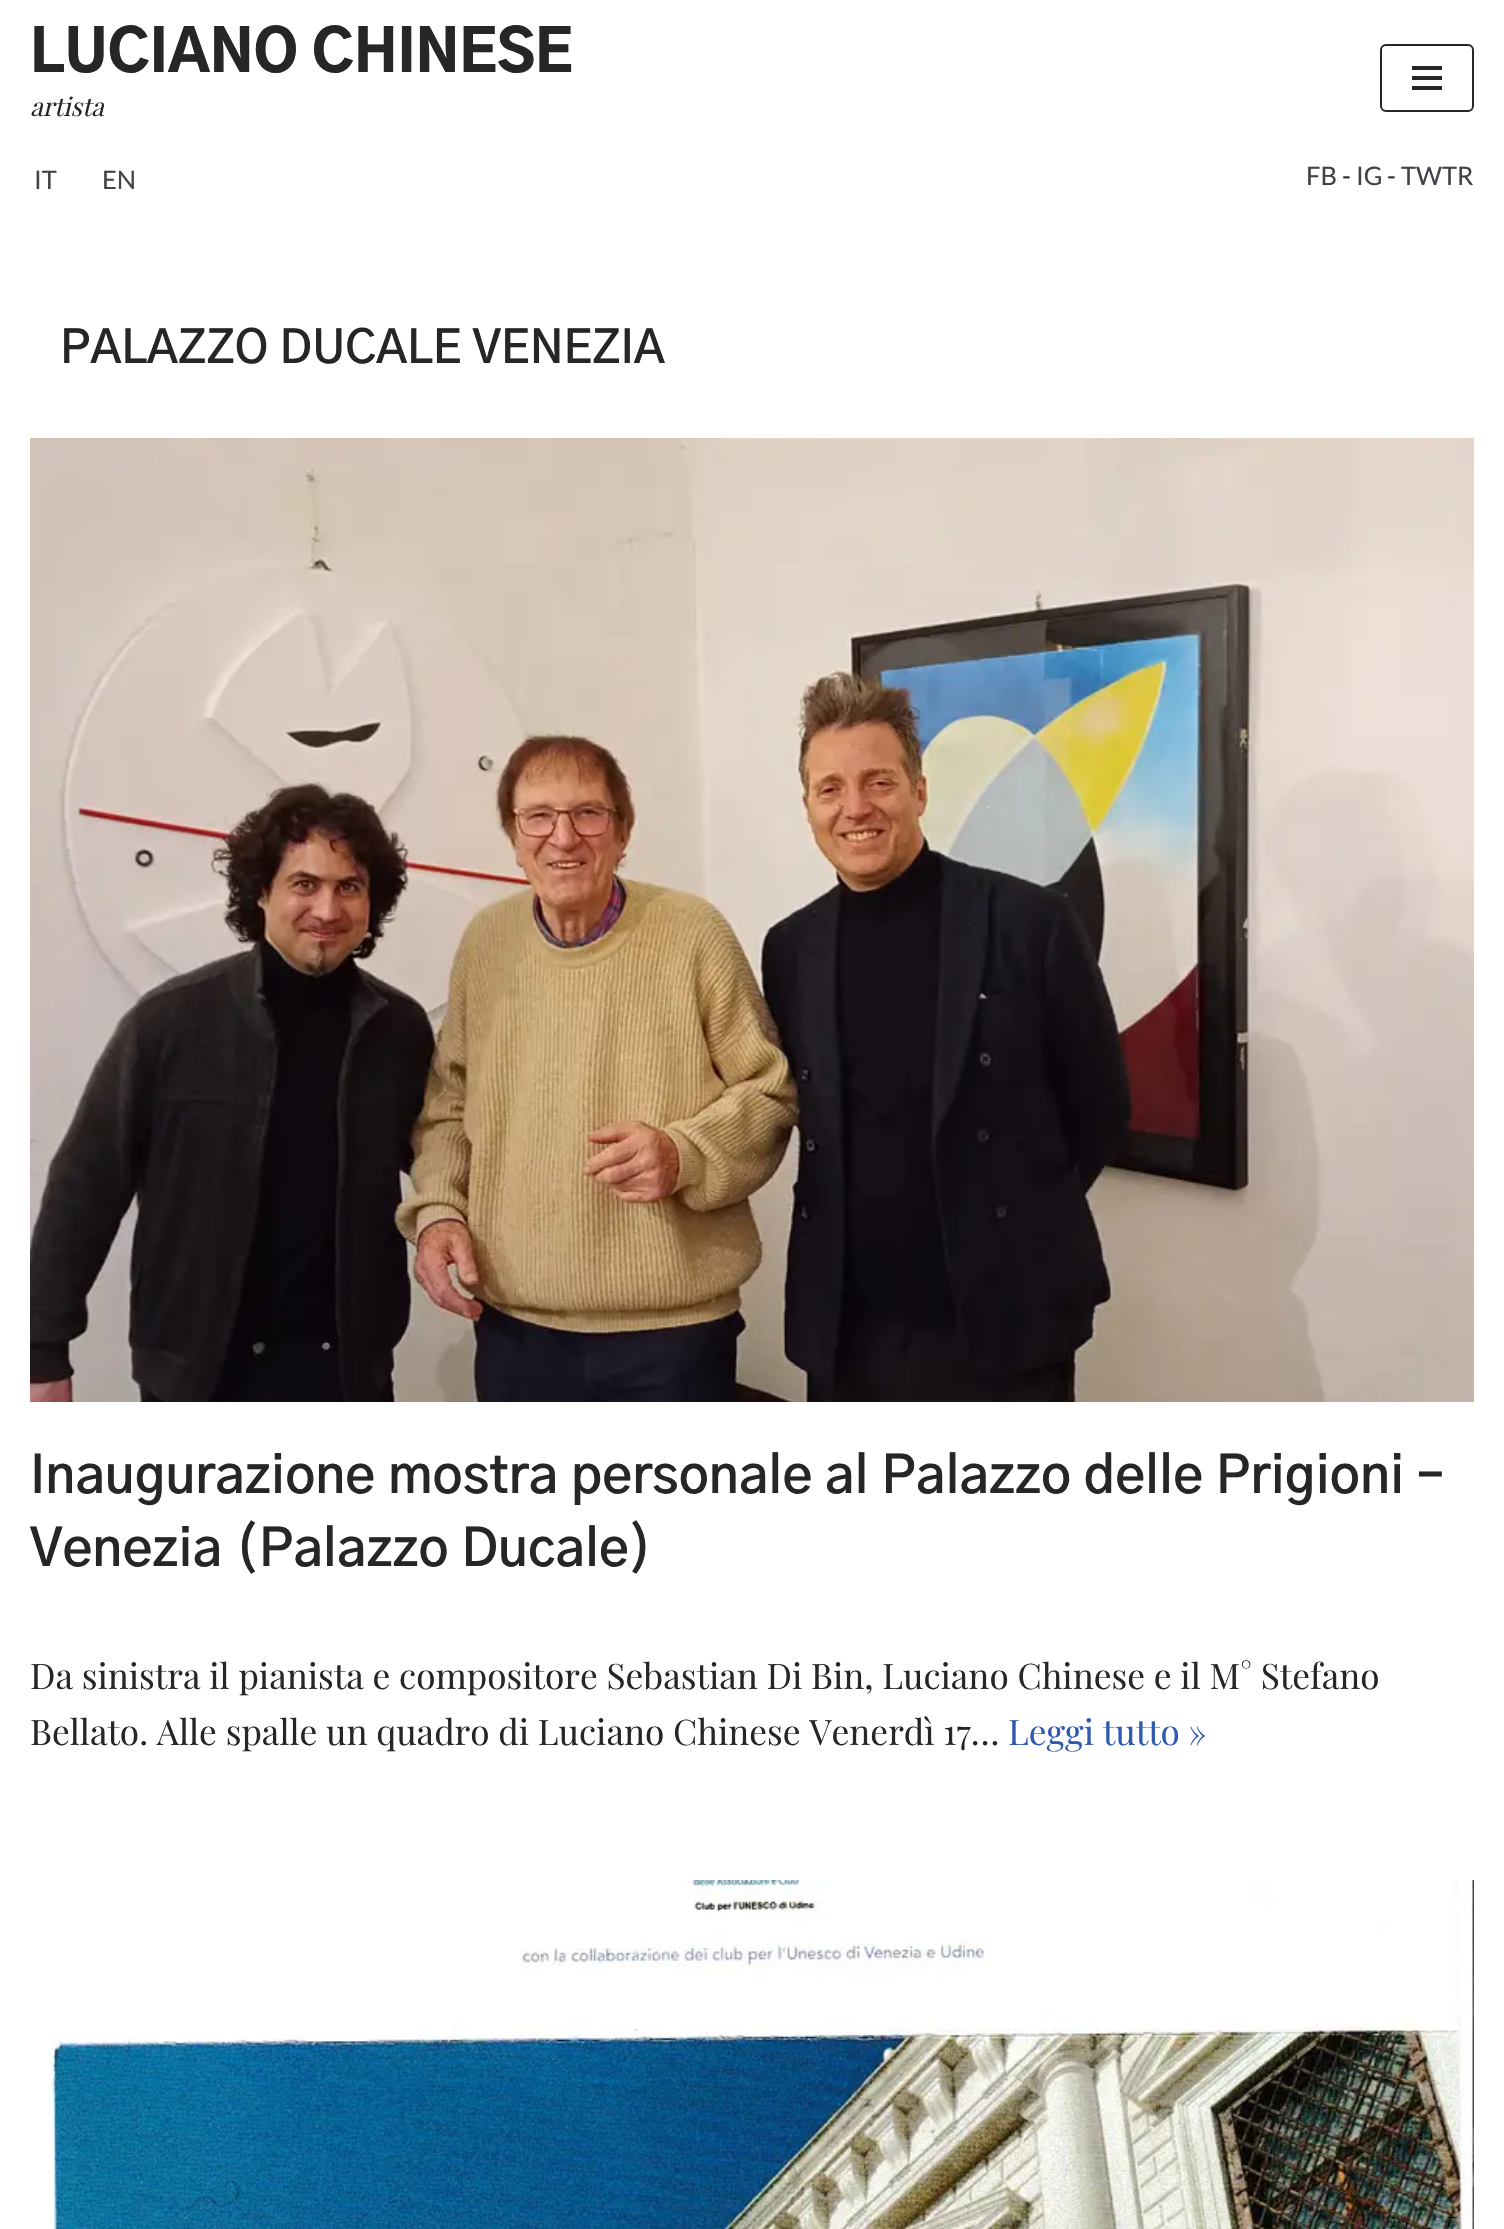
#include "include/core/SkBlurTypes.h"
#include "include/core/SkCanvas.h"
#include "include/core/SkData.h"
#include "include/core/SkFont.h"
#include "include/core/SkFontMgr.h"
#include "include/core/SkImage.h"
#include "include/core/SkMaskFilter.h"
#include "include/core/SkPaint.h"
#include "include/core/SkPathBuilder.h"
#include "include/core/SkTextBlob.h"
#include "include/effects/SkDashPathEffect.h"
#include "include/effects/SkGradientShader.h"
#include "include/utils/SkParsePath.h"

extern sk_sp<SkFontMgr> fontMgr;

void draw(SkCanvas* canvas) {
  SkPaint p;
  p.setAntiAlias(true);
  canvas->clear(SK_ColorWHITE);
  p.setStyle(SkPaint::kStroke_Style);
  p.setStrokeWidth(2);
  p.setColor(SkColorSetRGB(39, 38, 38));
  canvas->drawRoundRect(SkRect::MakeLTRB(1381, 45, 1473, 111), 5, 5, p);
  p.setStyle(SkPaint::kFill_Style);
  canvas->drawRect(SkRect::MakeLTRB(1412, 66, 1442, 70), p);
  canvas->drawRect(SkRect::MakeLTRB(1412, 76, 1442, 80), p);
  canvas->drawRect(SkRect::MakeLTRB(1412, 86, 1442, 90), p);
  canvas->drawImageRect(SkImages::DeferredFromEncodedData(SkData::MakeFromFileName("images/1.png")), SkRect::MakeLTRB(30, 438, 1474, 1402), SkSamplingOptions());
  canvas->drawImageRect(SkImages::DeferredFromEncodedData(SkData::MakeFromFileName("images/2.png")), SkRect::MakeLTRB(49, 1880, 1474, 2229), SkSamplingOptions());
  SkFont font1(fontMgr->matchFamilyStyle("Gothic A1", SkFontStyle(900, SkFontStyle::kNormal_Width, SkFontStyle::kUpright_Slant)), 57.5f);
  font1.setSubpixel(true);
  canvas->drawString("LUCIANO CHINESE", 30, 72, font1, p);
  SkFont font2(fontMgr->matchFamilyStyle("Playfair Display", SkFontStyle::Italic()), 25.5f);
  font2.setSubpixel(true);
  canvas->drawString("artista", 30, 116, font2, p);
  SkFont font3(fontMgr->matchFamilyStyle("Lato", SkFontStyle::Normal()), 25.5f);
  font3.setSubpixel(true);
  p.setColor(SkColorSetRGB(64, 66, 72));
  canvas->drawString("IT", 34, 189, font3, p);
  canvas->drawString("EN", 102, 189, font3, p);
  canvas->drawString("FB", 1306, 185, font3, p);
  p.setColor(SkColorSetRGB(39, 38, 38));
  canvas->drawString("-", 1342, 185, font3, p);
  p.setColor(SkColorSetRGB(64, 66, 72));
  canvas->drawString("IG", 1356, 185, font3, p);
  p.setColor(SkColorSetRGB(39, 38, 38));
  canvas->drawString("-", 1387, 185, font3, p);
  p.setColor(SkColorSetRGB(64, 66, 72));
  canvas->drawString("TWTR", 1401, 185, font3, p);
  SkFont font4(fontMgr->matchFamilyStyle("Gothic A1", SkFontStyle(600, SkFontStyle::kNormal_Width, SkFontStyle::kUpright_Slant)), 45.75f);
  font4.setSubpixel(true);
  p.setColor(SkColorSetRGB(39, 38, 38));
  canvas->drawString("PALAZZO DUCALE VENEZIA", 60, 363, font4, p);
  SkFont font5(fontMgr->matchFamilyStyle("Gothic A1", SkFontStyle(600, SkFontStyle::kNormal_Width, SkFontStyle::kUpright_Slant)), 52);
  font5.setSubpixel(true);
  canvas->drawString("Inaugurazione mostra personale al Palazzo delle Prigioni –", 30, 1493, font5, p);
  canvas->drawString("Venezia (Palazzo Ducale)", 30, 1566, font5, p);
  SkFont font6(fontMgr->matchFamilyStyle("Playfair Display", SkFontStyle::Normal()), 35.2f);
  font6.setSubpixel(true);
  canvas->drawString("Da sinistra il pianista e compositore Sebastian Di Bin, Luciano Chinese e il M° Stefano", 30, 1689, font6, p);
  canvas->drawString("Bellato. Alle spalle un quadro di Luciano Chinese Venerdì 17…", 30, 1745, font6, p);
  p.setColor(SkColorSetRGB(47, 90, 174));
  canvas->drawString("Leggi tutto »", 1008, 1745, font6, p);
}
